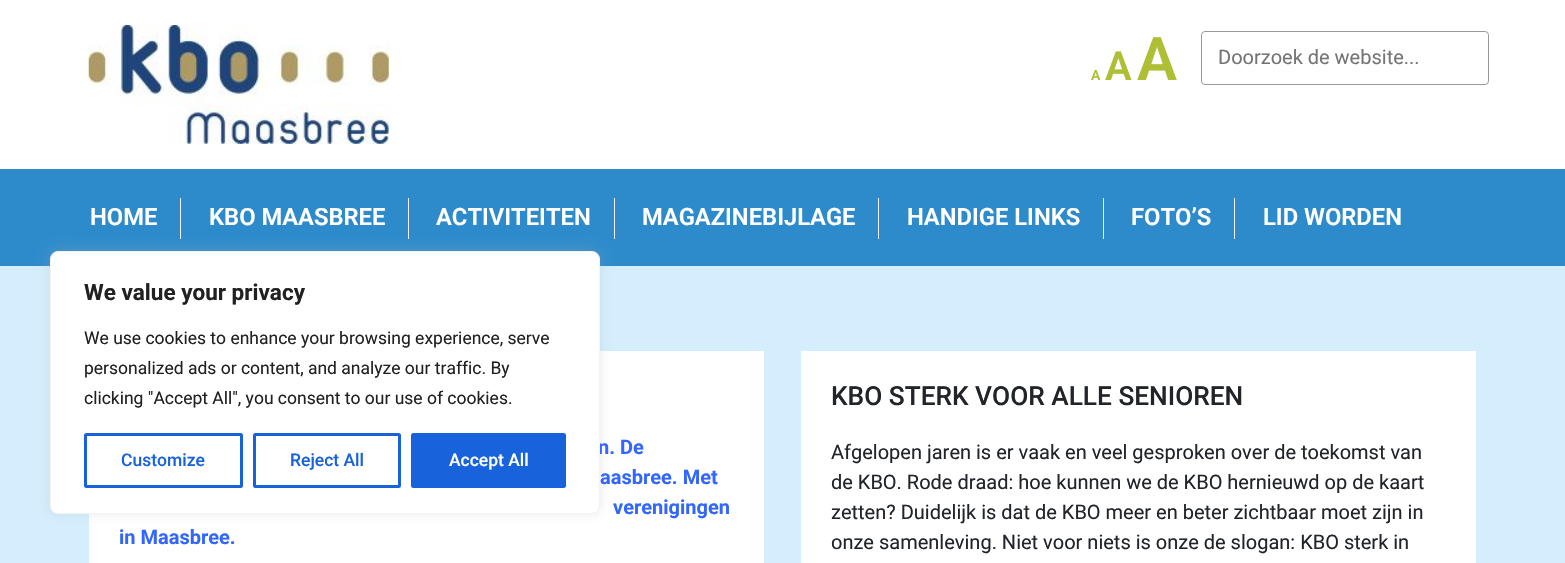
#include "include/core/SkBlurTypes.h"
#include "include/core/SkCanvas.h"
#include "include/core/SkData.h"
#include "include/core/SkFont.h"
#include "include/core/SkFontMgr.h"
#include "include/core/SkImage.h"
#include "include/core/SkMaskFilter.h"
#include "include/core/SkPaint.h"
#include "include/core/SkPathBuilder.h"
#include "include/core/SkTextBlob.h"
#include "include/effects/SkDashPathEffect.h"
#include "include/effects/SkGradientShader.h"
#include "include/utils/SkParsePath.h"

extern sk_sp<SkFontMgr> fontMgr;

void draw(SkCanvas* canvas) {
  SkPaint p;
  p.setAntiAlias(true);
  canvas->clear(SK_ColorWHITE);
  canvas->drawImageRect(SkImages::DeferredFromEncodedData(SkData::MakeFromFileName("images/1.png")), SkRect::MakeLTRB(88, 25, 389, 144), SkSamplingOptions());
  p.setStyle(SkPaint::kStroke_Style);
  p.setStrokeWidth(1);
  p.setColor(SkColorSetRGB(153, 153, 153));
  canvas->drawRoundRect(SkRect::MakeLTRB(1201.5f, 31.5f, 1488.5f, 84.5f), 3.5f, 3.5f, p);
  p.setStyle(SkPaint::kFill_Style);
  p.setColor(SkColorSetRGB(46, 139, 203));
  canvas->drawRect(SkRect::MakeLTRB(0, 169, 1565, 266), p);
  p.setColor(SkColorSetRGB(241, 241, 241));
  canvas->drawRect(SkRect::MakeLTRB(180, 198, 181, 239), p);
  canvas->drawRect(SkRect::MakeLTRB(408, 198, 409, 239), p);
  canvas->drawRect(SkRect::MakeLTRB(614, 198, 615, 239), p);
  canvas->drawRect(SkRect::MakeLTRB(878, 198, 879, 239), p);
  canvas->drawRect(SkRect::MakeLTRB(1103, 198, 1104, 239), p);
  canvas->drawRect(SkRect::MakeLTRB(1234, 198, 1235, 239), p);
  p.setColor(SkColorSetRGB(212, 238, 253));
  canvas->drawRect(SkRect::MakeLTRB(0, 266, 1565, 563), p);
  p.setColor(SK_ColorWHITE);
  canvas->drawRect(SkRect::MakeLTRB(89, 351, 764, 563), p);
  p.setColor(SkColorSetARGB(77, 172, 171, 171));
  p.setMaskFilter(SkMaskFilter::MakeBlur(kNormal_SkBlurStyle, 6));
  canvas->drawRoundRect(SkRect::MakeLTRB(50, 250, 600, 513), 8, 8, p);
  p.setMaskFilter(nullptr);
  p.setColor(SK_ColorWHITE);
  canvas->drawRect(SkRect::MakeLTRB(801, 351, 1476, 563), p);
  SkFont font1(fontMgr->matchFamilyStyle("Roboto", SkFontStyle(600, SkFontStyle::kNormal_Width, SkFontStyle::kUpright_Slant)), 14);
  font1.setSubpixel(true);
  p.setColor(SkColorSetRGB(174, 191, 53));
  canvas->drawString("A", 1091, 80, font1, p);
  SkFont font2(fontMgr->matchFamilyStyle("Roboto", SkFontStyle(600, SkFontStyle::kNormal_Width, SkFontStyle::kUpright_Slant)), 40);
  font2.setSubpixel(true);
  canvas->drawString("A", 1105, 80, font2, p);
  SkFont font3(fontMgr->matchFamilyStyle("Roboto", SkFontStyle(600, SkFontStyle::kNormal_Width, SkFontStyle::kUpright_Slant)), 60);
  font3.setSubpixel(true);
  canvas->drawString("A", 1137, 80, font3, p);
  SkFont font4(fontMgr->matchFamilyStyle("Roboto", SkFontStyle::Normal()), 20);
  font4.setSubpixel(true);
  p.setColor(SkColorSetRGB(117, 117, 117));
  canvas->drawString("Doorzoek de website...", 1218, 64, font4, p);
  SkFont font5(fontMgr->matchFamilyStyle("Roboto", SkFontStyle(600, SkFontStyle::kNormal_Width, SkFontStyle::kUpright_Slant)), 23.75f);
  font5.setSubpixel(true);
  p.setColor(SK_ColorWHITE);
  canvas->drawString("HOME", 90, 225, font5, p);
  canvas->drawString("KBO MAASBREE", 209, 225, font5, p);
  canvas->drawString("ACTIVITEITEN", 436, 225, font5, p);
  canvas->drawString("MAGAZINEBIJLAGE", 642, 225, font5, p);
  canvas->drawString("HANDIGE LINKS", 907, 225, font5, p);
  canvas->drawString("FOTO’S", 1131, 225, font5, p);
  canvas->drawString("LID WORDEN", 1263, 225, font5, p);
  SkFont font6(fontMgr->matchFamilyStyle("Roboto", SkFontStyle::Bold()), 20);
  font6.setSubpixel(true);
  p.setColor(SkColorSetRGB(51, 102, 255));
  canvas->drawString("n. De", 598, 454, font6, p);
  p.setColor(SK_ColorWHITE);
  canvas->drawRoundRect(SkRect::MakeLTRB(50.5f, 251.5f, 599.5f, 513.5f), 7.5f, 7.5f, p);
  p.setStyle(SkPaint::kStroke_Style);
  p.setColor(SkColorSetRGB(244, 244, 244));
  canvas->drawRoundRect(SkRect::MakeLTRB(50.5f, 251.5f, 599.5f, 513.5f), 7.5f, 7.5f, p);
  p.setStyle(SkPaint::kFill_Style);
  p.setColor(SkColorSetRGB(24, 99, 220));
  canvas->drawRoundRect(SkRect::MakeLTRB(412.5f, 434.5f, 564.5f, 486.5f), 1, 1, p);
  p.setStyle(SkPaint::kStroke_Style);
  p.setStrokeWidth(3);
  canvas->drawRoundRect(SkRect::MakeLTRB(412.5f, 434.5f, 564.5f, 486.5f), 1, 1, p);
  SkFont font7(fontMgr->matchFamilyStyle("Roboto", SkFontStyle(500, SkFontStyle::kNormal_Width, SkFontStyle::kUpright_Slant)), 17.5f);
  font7.setSubpixel(true);
  p.setStyle(SkPaint::kFill_Style);
  p.setColor(SK_ColorWHITE);
  canvas->drawString("Accept All", 449, 466, font7, p);
  p.setStyle(SkPaint::kStroke_Style);
  p.setColor(SkColorSetRGB(24, 99, 220));
  canvas->drawRoundRect(SkRect::MakeLTRB(254.5f, 434.5f, 399.5f, 486.5f), 1, 1, p);
  p.setStyle(SkPaint::kFill_Style);
  canvas->drawString("Reject All", 290, 466, font7, p);
  p.setStyle(SkPaint::kStroke_Style);
  canvas->drawRoundRect(SkRect::MakeLTRB(85.5f, 434.5f, 241.5f, 486.5f), 1, 1, p);
  p.setStyle(SkPaint::kFill_Style);
  canvas->drawString("Customize", 121, 466, font7, p);
  SkFont font8(fontMgr->matchFamilyStyle("Roboto", SkFontStyle::Normal()), 17.5f);
  font8.setSubpixel(true);
  p.setColor(SkColorSetRGB(33, 33, 33));
  canvas->drawString("clicking \"Accept All\", you consent to our use of cookies.", 84, 404, font8, p);
  canvas->drawString("personalized ads or content, and analyze our traffic. By", 84, 374, font8, p);
  canvas->drawString("We use cookies to enhance your browsing experience, serve", 84, 344, font8, p);
  SkFont font9(fontMgr->matchFamilyStyle("Roboto", SkFontStyle::Bold()), 22.5f);
  font9.setSubpixel(true);
  canvas->drawString("We value your privacy", 84, 300, font9, p);
  p.setColor(SkColorSetRGB(51, 102, 255));
  canvas->drawString("aasbree. Met", 600, 484, font6, p);
  canvas->drawString("verenigingen", 613, 514, font6, p);
  canvas->drawString("in Maasbree.", 119, 544, font6, p);
  SkFont font10(fontMgr->matchFamilyStyle("Roboto", SkFontStyle(500, SkFontStyle::kNormal_Width, SkFontStyle::kUpright_Slant)), 26.25f);
  font10.setSubpixel(true);
  p.setColor(SkColorSetRGB(33, 37, 41));
  canvas->drawString("KBO STERK VOOR ALLE SENIOREN", 831, 405, font10, p);
  canvas->drawString("Afgelopen jaren is er vaak en veel gesproken over de toekomst van", 831, 459, font4, p);
  canvas->drawString("de KBO. Rode draad: hoe kunnen we de KBO hernieuwd op de kaart", 831, 489, font4, p);
  canvas->drawString("zetten? Duidelijk is dat de KBO meer en beter zichtbaar moet zijn in", 831, 519, font4, p);
  canvas->drawString("onze samenleving. Niet voor niets is onze de slogan: KBO sterk in", 831, 549, font4, p);
}
